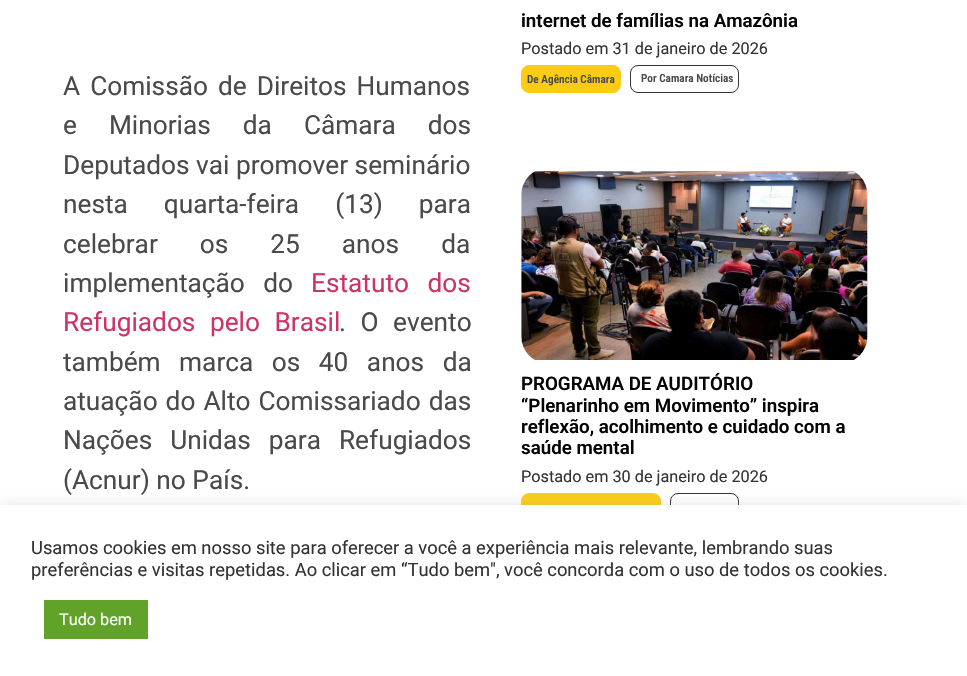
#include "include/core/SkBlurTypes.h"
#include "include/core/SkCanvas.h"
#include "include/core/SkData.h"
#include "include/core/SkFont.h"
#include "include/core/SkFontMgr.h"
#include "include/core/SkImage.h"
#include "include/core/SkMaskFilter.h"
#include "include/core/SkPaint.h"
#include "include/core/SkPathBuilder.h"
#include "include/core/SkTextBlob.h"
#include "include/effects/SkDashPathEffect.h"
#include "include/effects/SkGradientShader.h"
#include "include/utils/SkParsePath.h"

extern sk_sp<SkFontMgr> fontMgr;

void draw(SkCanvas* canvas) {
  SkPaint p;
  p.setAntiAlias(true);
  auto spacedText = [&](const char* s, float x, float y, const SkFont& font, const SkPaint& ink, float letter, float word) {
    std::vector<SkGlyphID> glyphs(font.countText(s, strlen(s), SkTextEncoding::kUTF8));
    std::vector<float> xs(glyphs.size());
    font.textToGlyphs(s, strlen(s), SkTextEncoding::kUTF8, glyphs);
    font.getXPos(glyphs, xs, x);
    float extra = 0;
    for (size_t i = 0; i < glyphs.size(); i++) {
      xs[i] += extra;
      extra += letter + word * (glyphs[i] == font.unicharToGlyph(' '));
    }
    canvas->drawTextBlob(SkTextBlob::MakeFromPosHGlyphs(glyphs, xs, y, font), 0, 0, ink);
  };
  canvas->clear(SK_ColorWHITE);
  p.setColor(SkColorSetRGB(252, 204, 20));
  canvas->drawRoundRect(SkRect::MakeLTRB(521.5f, 65.5f, 620.5f, 92.5f), 7.5f, 7.5f, p);
  p.setStyle(SkPaint::kStroke_Style);
  p.setStrokeWidth(1);
  canvas->drawRoundRect(SkRect::MakeLTRB(521.5f, 65.5f, 620.5f, 92.5f), 7.5f, 7.5f, p);
  p.setColor(SkColorSetRGB(51, 51, 51));
  canvas->drawRoundRect(SkRect::MakeLTRB(630.5f, 65.5f, 738.5f, 92.5f), 7.5f, 7.5f, p);
  canvas->drawImageRect(SkImages::DeferredFromEncodedData(SkData::MakeFromFileName("images/1.png")), SkRect::MakeLTRB(521, 171, 868, 360), SkSamplingOptions());
  p.setStyle(SkPaint::kFill_Style);
  p.setColor(SkColorSetRGB(252, 204, 20));
  canvas->drawRoundRect(SkRect::MakeLTRB(521.5f, 493.5f, 660.5f, 519.5f), 7.5f, 7.5f, p);
  p.setStyle(SkPaint::kStroke_Style);
  canvas->drawRoundRect(SkRect::MakeLTRB(521.5f, 493.5f, 660.5f, 519.5f), 7.5f, 7.5f, p);
  p.setColor(SkColorSetRGB(51, 51, 51));
  canvas->drawRoundRect(SkRect::MakeLTRB(670.5f, 493.5f, 738.5f, 519.5f), 7.5f, 7.5f, p);
  p.setStyle(SkPaint::kFill_Style);
  p.setColor(SkColorSetARGB(77, 172, 171, 171));
  p.setMaskFilter(SkMaskFilter::MakeBlur(kNormal_SkBlurStyle, 6));
  canvas->drawRect(SkRect::MakeLTRB(0, 504, 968, 675), p);
  p.setMaskFilter(nullptr);
  p.setColor(SK_ColorWHITE);
  canvas->drawRect(SkRect::MakeLTRB(0, 505, 967, 676), p);
  p.setColor(SkColorSetRGB(97, 162, 41));
  canvas->drawRect(SkRect::MakeLTRB(44, 600, 148, 639), p);
  SkFont font1(fontMgr->matchFamilyStyle("Roboto", SkFontStyle::Normal()), 26.25f);
  font1.setSubpixel(true);
  p.setColor(SkColorSetRGB(74, 74, 74));
  spacedText("A Comissão de Direitos Humanos", 63, 95, font1, p, 0, 3.5f);
  spacedText("e Minorias da Câmara dos", 63, 134, font1, p, 0, 25.5f);
  canvas->drawString("Deputados vai promover seminário", 63, 174, font1, p);
  spacedText("nesta quarta-feira (13) para", 63, 213, font1, p, 0, 29.5f);
  spacedText("celebrar os 25 anos da", 63, 253, font1, p, 0, 35.5f);
  spacedText("implementação do", 63, 292, font1, p, 0, 12);
  p.setColor(SkColorSetRGB(204, 51, 102));
  spacedText("Estatuto dos", 311, 292, font1, p, 0, 12);
  spacedText("Refugiados pelo Brasil", 63, 331, font1, p, 0, 8);
  p.setColor(SkColorSetRGB(74, 74, 74));
  spacedText(". O evento", 339, 331, font1, p, 0, 8);
  spacedText("também marca os 40 anos da", 63, 371, font1, p, 0, 12);
  spacedText("atuação do Alto Comissariado das", 63, 410, font1, p, 0, 1.5f);
  spacedText("Nações Unidas para Refugiados", 63, 449, font1, p, 0, 11.5f);
  canvas->drawString("(Acnur) no País.", 63, 489, font1, p);
  SkFont font2(fontMgr->matchFamilyStyle("Roboto", SkFontStyle(600, SkFontStyle::kNormal_Width, SkFontStyle::kUpright_Slant)), 18.75f);
  font2.setSubpixel(true);
  p.setColor(SkColorSetRGB(4, 4, 4));
  canvas->drawString("internet de famílias na Amazônia", 521, 27, font2, p);
  SkFont font3(fontMgr->matchFamilyStyle("Roboto", SkFontStyle::Normal()), 16.25f);
  font3.setSubpixel(true);
  p.setColor(SkColorSetRGB(51, 51, 51));
  canvas->drawString("Postado em 31 de janeiro de 2026", 521, 54, font3, p);
  SkFont font4(fontMgr->matchFamilyStyle("Roboto Condensed", SkFontStyle(600, SkFontStyle::kNormal_Width, SkFontStyle::kUpright_Slant)), 11.25f);
  font4.setSubpixel(true);
  p.setColor(SkColorSetRGB(74, 74, 74));
  canvas->drawString("De Agência Câmara", 527, 83, font4, p);
  canvas->drawString("Por Camara Notícias", 641, 82, font4, p);
  p.setColor(SkColorSetRGB(4, 4, 4));
  canvas->drawString("PROGRAMA DE AUDITÓRIO", 521, 390, font2, p);
  canvas->drawString("“Plenarinho em Movimento” inspira", 521, 412, font2, p);
  canvas->drawString("reflexão, acolhimento e cuidado com a", 521, 433, font2, p);
  canvas->drawString("saúde mental", 521, 454, font2, p);
  p.setColor(SkColorSetRGB(51, 51, 51));
  canvas->drawString("Postado em 30 de janeiro de 2026", 521, 482, font3, p);
  SkFont font5(fontMgr->matchFamilyStyle("Roboto", SkFontStyle::Normal()), 18.35f);
  font5.setSubpixel(true);
  canvas->drawString("Usamos cookies em nosso site para oferecer a você a experiência mais relevante, lembrando suas", 31, 554, font5, p);
  canvas->drawString("preferências e visitas repetidas. Ao clicar em “Tudo bem\", você concorda com o uso de todos os cookies.", 31, 576, font5, p);
  p.setColor(SK_ColorWHITE);
  canvas->drawString("Tudo bem", 59, 625, font3, p);
}
